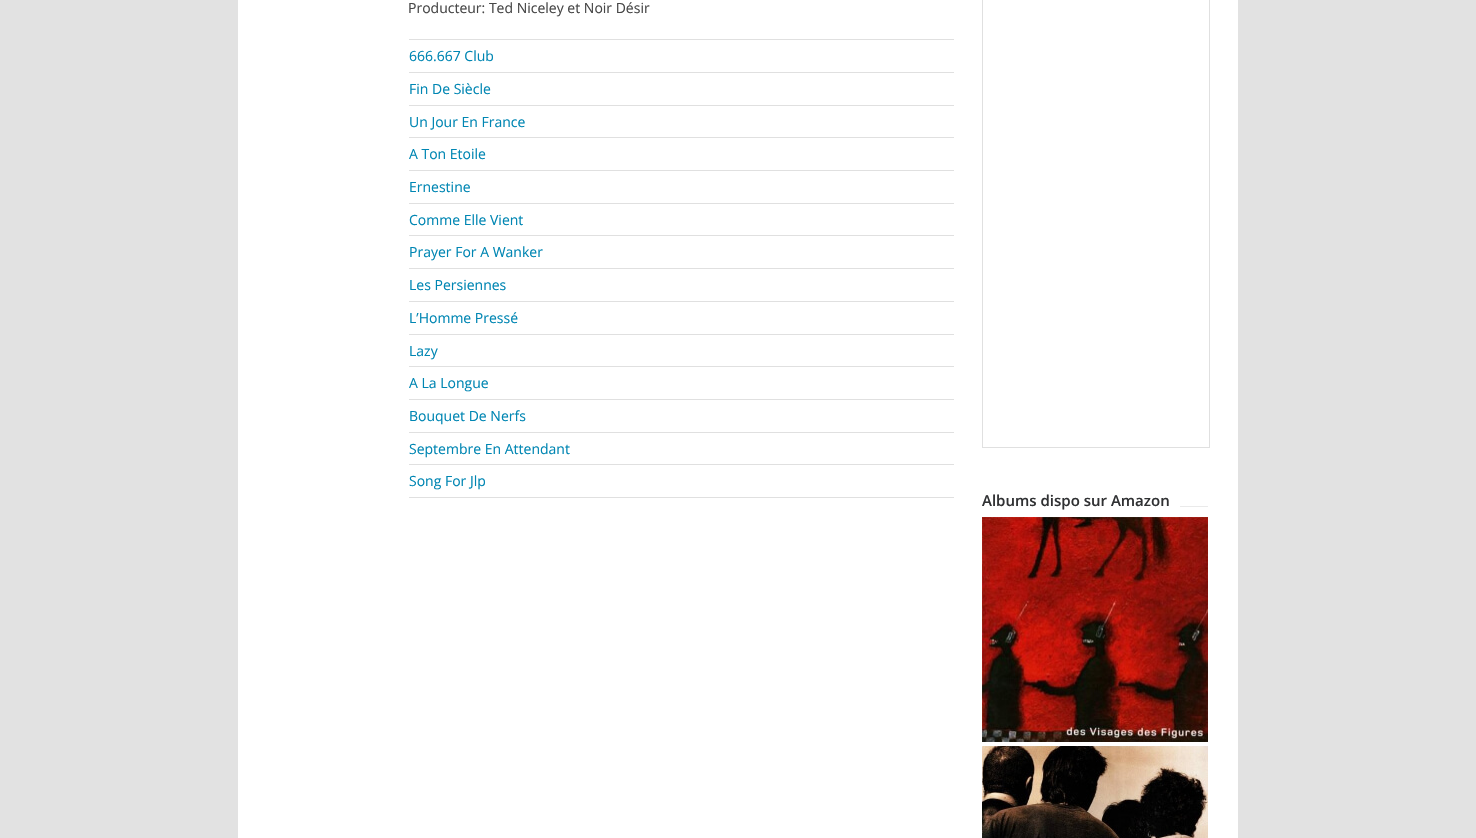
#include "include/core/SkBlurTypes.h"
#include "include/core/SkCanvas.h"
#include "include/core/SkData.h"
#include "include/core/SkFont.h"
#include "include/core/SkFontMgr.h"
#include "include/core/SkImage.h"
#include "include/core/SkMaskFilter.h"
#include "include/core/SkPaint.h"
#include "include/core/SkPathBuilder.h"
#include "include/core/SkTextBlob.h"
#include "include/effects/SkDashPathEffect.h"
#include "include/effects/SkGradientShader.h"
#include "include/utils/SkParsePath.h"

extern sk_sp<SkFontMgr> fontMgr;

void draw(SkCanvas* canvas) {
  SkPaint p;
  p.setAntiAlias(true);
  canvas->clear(SkColorSetRGB(226, 226, 226));
  p.setColor(SK_ColorWHITE);
  canvas->drawRect(SkRect::MakeLTRB(238, 0, 1238, 838), p);
  p.setColor(SkColorSetRGB(224, 224, 224));
  canvas->drawRect(SkRect::MakeLTRB(409, 39, 954, 40), p);
  canvas->drawRect(SkRect::MakeLTRB(409, 72, 954, 73), p);
  canvas->drawRect(SkRect::MakeLTRB(409, 105, 954, 106), p);
  canvas->drawRect(SkRect::MakeLTRB(409, 137, 954, 138), p);
  canvas->drawRect(SkRect::MakeLTRB(409, 170, 954, 171), p);
  canvas->drawRect(SkRect::MakeLTRB(409, 203, 954, 204), p);
  canvas->drawRect(SkRect::MakeLTRB(409, 235, 954, 236), p);
  canvas->drawRect(SkRect::MakeLTRB(409, 268, 954, 269), p);
  canvas->drawRect(SkRect::MakeLTRB(409, 301, 954, 302), p);
  canvas->drawRect(SkRect::MakeLTRB(409, 334, 954, 335), p);
  canvas->drawRect(SkRect::MakeLTRB(409, 366, 954, 367), p);
  canvas->drawRect(SkRect::MakeLTRB(409, 399, 954, 400), p);
  canvas->drawRect(SkRect::MakeLTRB(409, 432, 954, 433), p);
  canvas->drawRect(SkRect::MakeLTRB(409, 464, 954, 465), p);
  canvas->drawRect(SkRect::MakeLTRB(409, 497, 954, 498), p);
  p.setStyle(SkPaint::kStroke_Style);
  p.setStrokeWidth(1);
  canvas->drawRect(SkRect::MakeLTRB(982.5f, -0.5f, 1209.5f, 447.5f), p);
  p.setStyle(SkPaint::kFill_Style);
  p.setColor(SkColorSetRGB(234, 234, 234));
  canvas->drawRect(SkRect::MakeLTRB(1180, 506, 1208, 507), p);
  canvas->drawImageRect(SkImages::DeferredFromEncodedData(SkData::MakeFromFileName("images/1.png")), SkRect::MakeLTRB(982, 517, 1208, 742), SkSamplingOptions());
  canvas->drawImageRect(SkImages::DeferredFromEncodedData(SkData::MakeFromFileName("images/2.png")), SkRect::MakeLTRB(982, 746, 1208, 838), SkSamplingOptions());
  SkFont font1(fontMgr->matchFamilyStyle("Open Sans", SkFontStyle::Normal()), 14);
  font1.setSubpixel(true);
  p.setColor(SkColorSetRGB(71, 71, 71));
  canvas->drawString("Producteur: Ted Niceley et Noir Désir", 408, 13, font1, p);
  p.setColor(SkColorSetRGB(0, 134, 179));
  canvas->drawString("666.667 Club", 409, 61, font1, p);
  canvas->drawString("Fin De Siècle", 409, 94, font1, p);
  canvas->drawString("Un Jour En France", 409, 127, font1, p);
  canvas->drawString("A Ton Etoile", 409, 159, font1, p);
  canvas->drawString("Ernestine", 409, 192, font1, p);
  canvas->drawString("Comme Elle Vient", 409, 225, font1, p);
  canvas->drawString("Prayer For A Wanker", 409, 257, font1, p);
  canvas->drawString("Les Persiennes", 409, 290, font1, p);
  canvas->drawString("L’Homme Pressé", 409, 323, font1, p);
  canvas->drawString("Lazy", 409, 356, font1, p);
  canvas->drawString("A La Longue", 409, 388, font1, p);
  canvas->drawString("Bouquet De Nerfs", 409, 421, font1, p);
  canvas->drawString("Septembre En Attendant", 409, 454, font1, p);
  canvas->drawString("Song For Jlp", 409, 486, font1, p);
  SkFont font2(fontMgr->matchFamilyStyle("Open Sans", SkFontStyle(600, SkFontStyle::kNormal_Width, SkFontStyle::kUpright_Slant)), 15);
  font2.setSubpixel(true);
  p.setColor(SkColorSetRGB(48, 49, 51));
  canvas->drawString("Albums dispo sur Amazon", 982, 506, font2, p);
}
